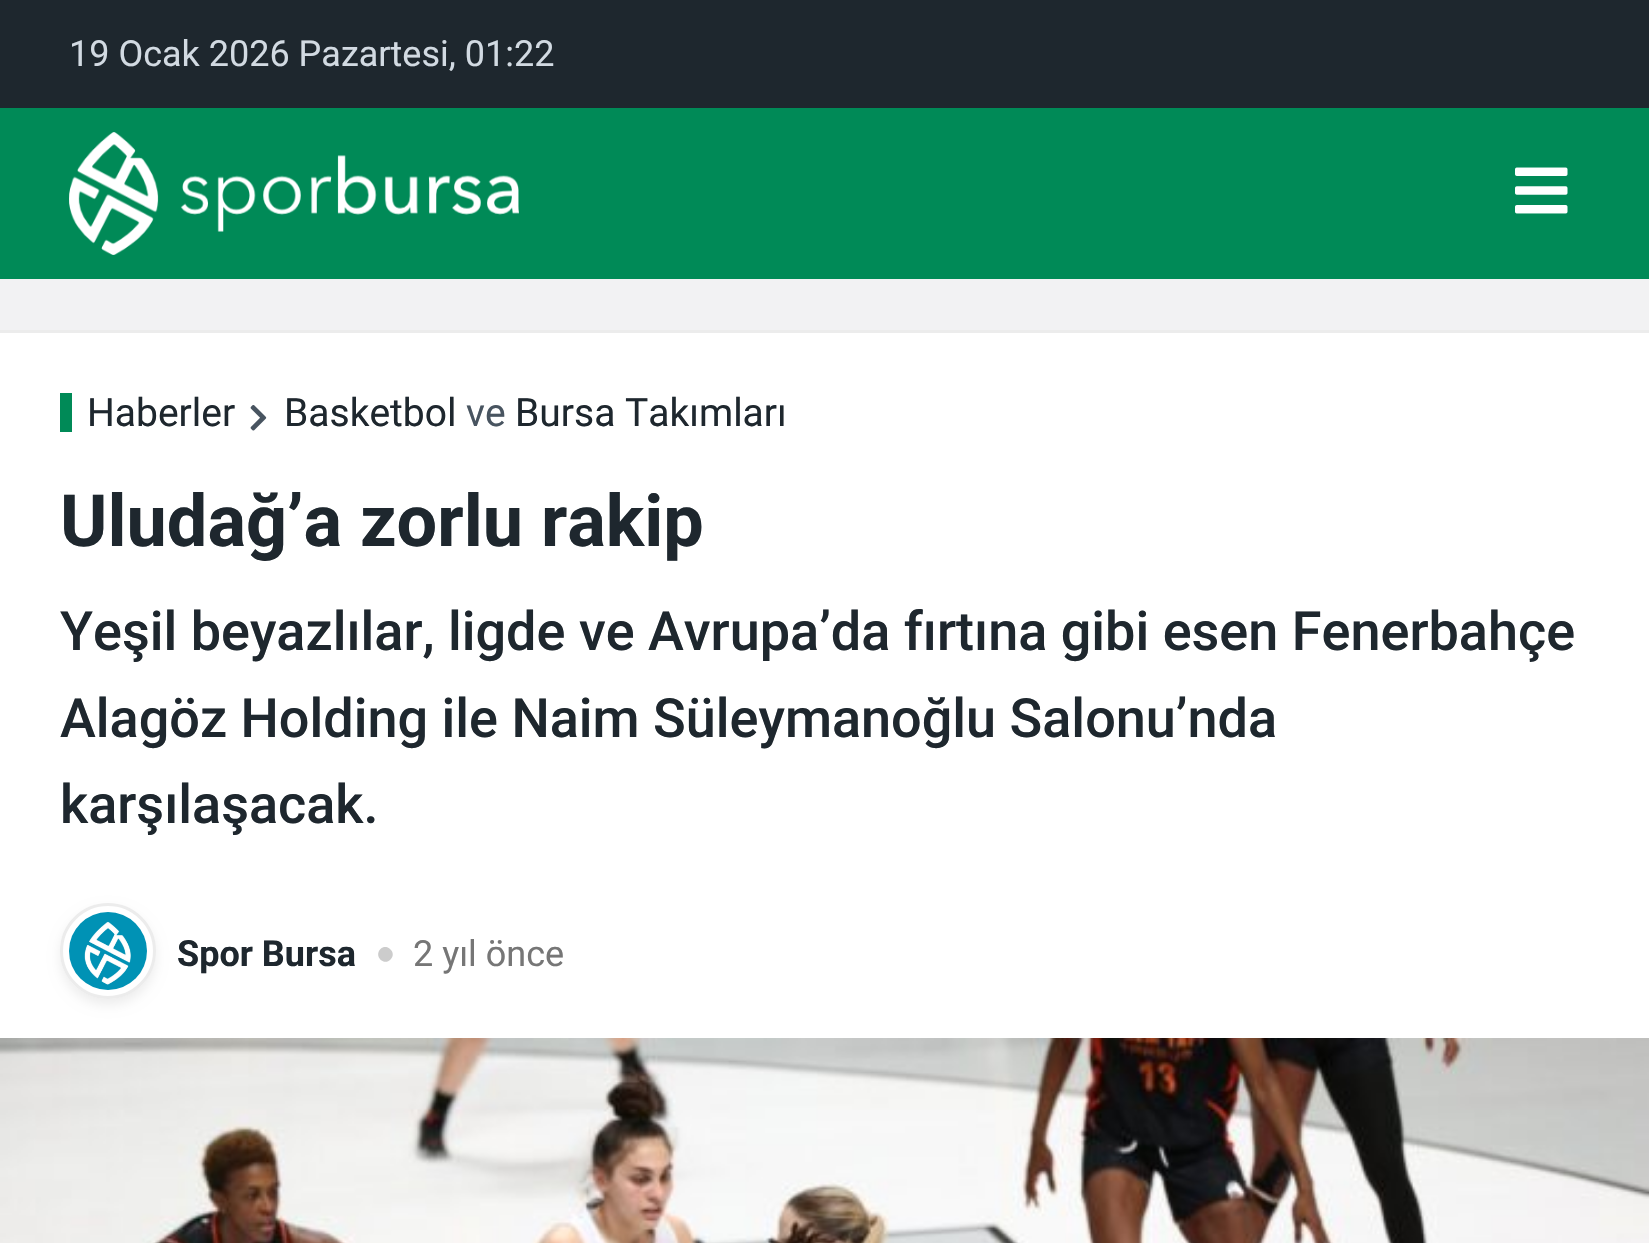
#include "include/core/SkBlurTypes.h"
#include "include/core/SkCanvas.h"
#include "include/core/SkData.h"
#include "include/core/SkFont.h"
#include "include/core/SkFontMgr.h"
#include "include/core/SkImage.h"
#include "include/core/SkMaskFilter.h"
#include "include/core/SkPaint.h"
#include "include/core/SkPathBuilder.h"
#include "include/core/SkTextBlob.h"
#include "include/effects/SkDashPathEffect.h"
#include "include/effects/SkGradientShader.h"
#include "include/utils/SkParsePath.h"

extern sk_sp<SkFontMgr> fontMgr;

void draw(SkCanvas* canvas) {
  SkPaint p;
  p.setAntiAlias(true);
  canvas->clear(SkColorSetRGB(242, 242, 243));
  p.setColor(SkColorSetRGB(30, 39, 46));
  canvas->drawRect(SkRect::MakeLTRB(0, 0, 1649, 108), p);
  p.setColor(SkColorSetRGB(0, 138, 87));
  canvas->drawRect(SkRect::MakeLTRB(0, 108, 1649, 279), p);
  canvas->drawImageRect(SkImages::DeferredFromEncodedData(SkData::MakeFromFileName("images/1.png")), SkRect::MakeLTRB(69, 132, 519, 255), SkSamplingOptions());
  canvas->drawImageRect(SkImages::DeferredFromEncodedData(SkData::MakeFromFileName("images/2.png")), SkRect::MakeLTRB(1515, 167, 1568, 214), SkSamplingOptions());
  p.setColor(SK_ColorWHITE);
  canvas->drawRect(SkRect::MakeLTRB(0, 333, 1649, 1038), p);
  p.setColor(SkColorSetRGB(236, 236, 236));
  canvas->drawRect(SkRect::MakeLTRB(0, 330, 1649, 333), p);
  p.setColor(SkColorSetRGB(0, 138, 87));
  canvas->drawRect(SkRect::MakeLTRB(60, 393, 72, 432), p);
  canvas->drawImageRect(SkImages::DeferredFromEncodedData(SkData::MakeFromFileName("images/3.png")), SkRect::MakeLTRB(250, 405, 267, 431), SkSamplingOptions());
  canvas->save();
  canvas->clipPath(SkPathBuilder(SkPathFillType::kEvenOdd).moveTo(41, 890).lineTo(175, 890).lineTo(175, 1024).lineTo(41, 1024).close().moveTo(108, 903).cubicTo(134.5f, 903, 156, 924.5f, 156, 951).cubicTo(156, 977.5f, 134.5f, 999, 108, 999).cubicTo(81.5f, 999, 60, 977.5f, 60, 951).cubicTo(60, 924.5f, 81.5f, 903, 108, 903).close().detach(), true);
  p.setColor(SkColorSetARGB(18, 0, 0, 0));
  p.setMaskFilter(SkMaskFilter::MakeBlur(kNormal_SkBlurStyle, 6));
  canvas->drawRoundRect(SkRect::MakeLTRB(60, 909, 156, 1005), 48, 48, p);
  p.setMaskFilter(nullptr);
  canvas->restore();
  p.setStyle(SkPaint::kStroke_Style);
  p.setStrokeWidth(3);
  p.setColor(SkColorSetRGB(236, 236, 236));
  canvas->drawCircle(108, 951, 46.5f, p);
  canvas->drawImageRect(SkImages::DeferredFromEncodedData(SkData::MakeFromFileName("images/4.png")), SkRect::MakeLTRB(69, 912, 147, 990), SkSamplingOptions());
  p.setStyle(SkPaint::kFill_Style);
  p.setColor(SkColorSetRGB(204, 204, 204));
  canvas->drawPath(SkPathBuilder().moveTo(380.5f, 949).cubicTo(387, 942.5f, 397.5f, 953, 390.5f, 959.5f).cubicTo(384, 966.5f, 373.5f, 956, 380.5f, 949).close().detach(), p);
  canvas->drawImageRect(SkImages::DeferredFromEncodedData(SkData::MakeFromFileName("images/5.png")), SkRect::MakeLTRB(0, 1038, 1649, 1243), SkSamplingOptions());
  SkFont font1(fontMgr->matchFamilyStyle("Roboto", SkFontStyle::Normal()), 36);
  font1.setSubpixel(true);
  p.setColor(SkColorSetRGB(210, 218, 226));
  canvas->drawString("19 Ocak 2026 Pazartesi, 01:22", 69, 66, font1, p);
  SkFont font2(fontMgr->matchFamilyStyle("Roboto", SkFontStyle::Normal()), 39);
  font2.setSubpixel(true);
  p.setColor(SkColorSetRGB(30, 39, 46));
  canvas->drawString("Haberler", 87, 426, font2, p);
  canvas->drawString("Basketbol", 284, 426, font2, p);
  p.setColor(SkColorSetRGB(72, 84, 96));
  canvas->drawString("ve", 466, 426, font2, p);
  p.setColor(SkColorSetRGB(30, 39, 46));
  canvas->drawString("Bursa Takımları", 515, 426, font2, p);
  SkFont font3(fontMgr->matchFamilyStyle("Roboto", SkFontStyle::Bold()), 72);
  font3.setSubpixel(true);
  canvas->drawString("Uludağ’a zorlu rakip", 60, 546, font3, p);
  SkFont font4(fontMgr->matchFamilyStyle("Roboto", SkFontStyle(500, SkFontStyle::kNormal_Width, SkFontStyle::kUpright_Slant)), 54);
  font4.setSubpixel(true);
  canvas->drawString("Yeşil beyazlılar, ligde ve Avrupa’da fırtına gibi esen Fenerbahçe", 60, 650, font4, p);
  canvas->drawString("Alagöz Holding ile Naim Süleymanoğlu Salonu’nda", 60, 737, font4, p);
  canvas->drawString("karşılaşacak.", 60, 823, font4, p);
  SkFont font5(fontMgr->matchFamilyStyle("Roboto", SkFontStyle::Bold()), 36);
  font5.setSubpixel(true);
  canvas->drawString("Spor Bursa", 177, 966, font5, p);
  p.setColor(SkColorSetRGB(118, 118, 118));
  canvas->drawString("2 yıl önce", 413, 966, font1, p);
}
